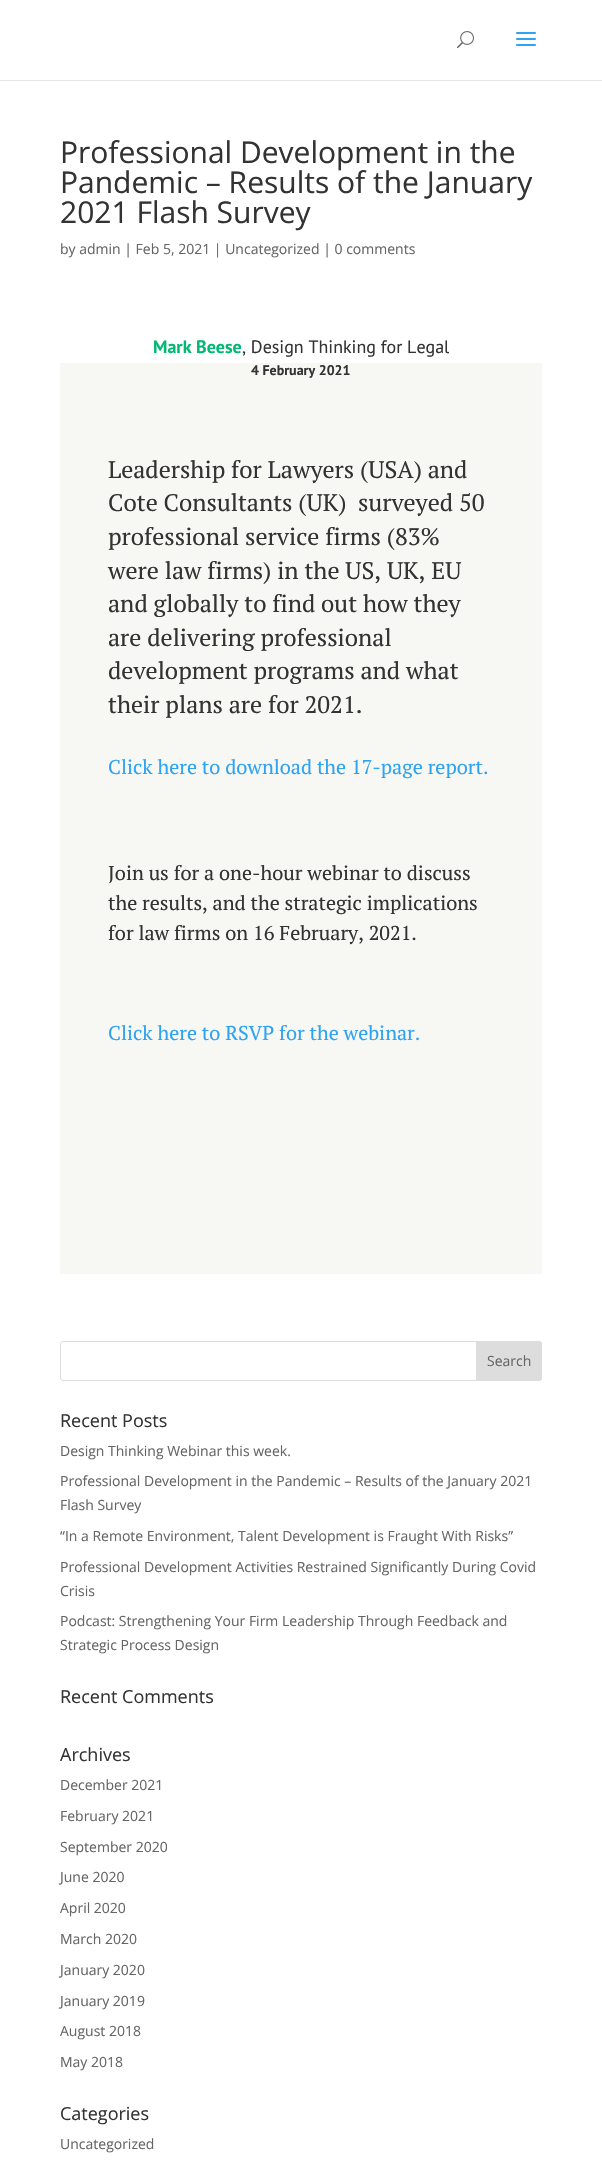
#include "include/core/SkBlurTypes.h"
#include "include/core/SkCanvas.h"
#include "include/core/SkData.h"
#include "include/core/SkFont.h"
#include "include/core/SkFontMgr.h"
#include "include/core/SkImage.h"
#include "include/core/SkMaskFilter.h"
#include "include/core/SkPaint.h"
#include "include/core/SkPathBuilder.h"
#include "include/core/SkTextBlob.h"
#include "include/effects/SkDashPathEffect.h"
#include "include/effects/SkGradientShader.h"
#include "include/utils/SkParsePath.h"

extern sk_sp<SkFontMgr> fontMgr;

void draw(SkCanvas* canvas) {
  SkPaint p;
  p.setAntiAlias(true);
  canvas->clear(SK_ColorWHITE);
  p.setColor(SkColorSetRGB(230, 230, 230));
  canvas->drawRect(SkRect::MakeLTRB(0, 80, 602, 81), p);
  canvas->drawImageRect(SkImages::DeferredFromEncodedData(SkData::MakeFromFileName("images/1.png")), SkRect::MakeLTRB(457, 31, 474, 49), SkSamplingOptions());
  canvas->drawImageRect(SkImages::DeferredFromEncodedData(SkData::MakeFromFileName("images/2.png")), SkRect::MakeLTRB(516, 32, 536, 46), SkSamplingOptions());
  p.setColor(SkColorSetRGB(247, 247, 244));
  canvas->drawRect(SkRect::MakeLTRB(60, 363, 542, 1274), p);
  p.setStyle(SkPaint::kStroke_Style);
  p.setStrokeWidth(1);
  p.setColor(SkColorSetRGB(221, 221, 221));
  canvas->drawRoundRect(SkRect::MakeLTRB(60.5f, 1341.5f, 541.5f, 1380.5f), 2.5f, 2.5f, p);
  p.setStyle(SkPaint::kFill_Style);
  canvas->drawPath(SkPathBuilder().moveTo(476.5f, 1341.5f).lineTo(539, 1341.5f).cubicTo(540.5f, 1341.5f, 541.5f, 1342.5f, 541.5f, 1344).lineTo(541.5f, 1378).cubicTo(541.5f, 1379.5f, 540.5f, 1380.5f, 539, 1380.5f).lineTo(476.5f, 1380.5f).close().detach(), p);
  p.setStyle(SkPaint::kStroke_Style);
  canvas->drawPath(SkPathBuilder().moveTo(476.5f, 1341.5f).lineTo(539, 1341.5f).cubicTo(540.5f, 1341.5f, 541.5f, 1342.5f, 541.5f, 1344).lineTo(541.5f, 1378).cubicTo(541.5f, 1379.5f, 540.5f, 1380.5f, 539, 1380.5f).lineTo(476.5f, 1380.5f).close().detach(), p);
  SkFont font1(fontMgr->matchFamilyStyle("Open Sans", SkFontStyle::Normal()), 30);
  font1.setSubpixel(true);
  p.setStyle(SkPaint::kFill_Style);
  p.setColor(SkColorSetRGB(51, 51, 51));
  canvas->drawString("Professional Development in the", 60, 163, font1, p);
  canvas->drawString("Pandemic – Results of the January", 60, 193, font1, p);
  canvas->drawString("2021 Flash Survey", 60, 223, font1, p);
  SkFont font2(fontMgr->matchFamilyStyle("Open Sans", SkFontStyle::Normal()), 14);
  font2.setSubpixel(true);
  p.setColor(SkColorSetRGB(102, 102, 102));
  canvas->drawString("by admin | Feb 5, 2021 | Uncategorized | 0 comments", 60, 254, font2, p);
  SkFont font3(fontMgr->matchFamilyStyle("PT Sans", SkFontStyle::Bold()), 18);
  font3.setSubpixel(true);
  p.setColor(SkColorSetRGB(2, 184, 117));
  canvas->drawString("Mark Beese", 153, 353, font3, p);
  SkFont font4(fontMgr->matchFamilyStyle("PT Sans", SkFontStyle::Normal()), 18);
  font4.setSubpixel(true);
  p.setColor(SkColorSetRGB(51, 51, 51));
  canvas->drawString(", Design Thinking for Legal", 242, 353, font4, p);
  SkFont font5(fontMgr->matchFamilyStyle("PT Sans", SkFontStyle::Bold()), 14);
  font5.setSubpixel(true);
  canvas->drawString("4 February 2021", 251, 375, font5, p);
  SkFont font6(fontMgr->matchFamilyStyle("PT Serif", SkFontStyle::Normal()), 24);
  font6.setSubpixel(true);
  canvas->drawString("Leadership for Lawyers (USA) and", 108, 478, font6, p);
  canvas->drawString("Cote Consultants (UK)", 108, 511, font6, p);
  canvas->drawString("surveyed 50", 358, 511, font6, p);
  canvas->drawString("professional service firms (83%", 108, 545, font6, p);
  canvas->drawString("were law firms) in the US, UK, EU", 108, 579, font6, p);
  canvas->drawString("and globally to find out how they", 108, 612, font6, p);
  canvas->drawString("are delivering professional", 108, 646, font6, p);
  canvas->drawString("development programs and what", 108, 679, font6, p);
  canvas->drawString("their plans are for 2021.", 108, 713, font6, p);
  SkFont font7(fontMgr->matchFamilyStyle("PT Serif", SkFontStyle::Normal()), 20);
  font7.setSubpixel(true);
  p.setColor(SkColorSetRGB(46, 163, 242));
  canvas->drawString("Click here to download the 17-page report.", 108, 774, font7, p);
  p.setColor(SkColorSetRGB(51, 51, 51));
  canvas->drawString("Join us for a one-hour webinar to discuss", 108, 880, font7, p);
  canvas->drawString("the results, and the strategic implications", 108, 910, font7, p);
  canvas->drawString("for law firms on 16 February, 2021.", 108, 940, font7, p);
  p.setColor(SkColorSetRGB(46, 163, 242));
  canvas->drawString("Click here to RSVP for the webinar.", 108, 1040, font7, p);
  p.setColor(SkColorSetRGB(102, 102, 102));
  canvas->drawString("Search", 487, 1366, font2, p);
  SkFont font8(fontMgr->matchFamilyStyle("Open Sans", SkFontStyle::Normal()), 18);
  font8.setSubpixel(true);
  p.setColor(SkColorSetRGB(51, 51, 51));
  canvas->drawString("Recent Posts", 60, 1427, font8, p);
  p.setColor(SkColorSetRGB(102, 102, 102));
  canvas->drawString("Design Thinking Webinar this week.", 60, 1456, font2, p);
  canvas->drawString("Professional Development in the Pandemic – Results of the January 2021", 60, 1486, font2, p);
  canvas->drawString("Flash Survey", 60, 1510, font2, p);
  canvas->drawString("“In a Remote Environment, Talent Development is Fraught With Risks”", 60, 1541, font2, p);
  canvas->drawString("Professional Development Activities Restrained Significantly During Covid", 60, 1572, font2, p);
  canvas->drawString("Crisis", 60, 1596, font2, p);
  canvas->drawString("Podcast: Strengthening Your Firm Leadership Through Feedback and", 60, 1626, font2, p);
  canvas->drawString("Strategic Process Design", 60, 1650, font2, p);
  p.setColor(SkColorSetRGB(51, 51, 51));
  canvas->drawString("Recent Comments", 60, 1703, font8, p);
  canvas->drawString("Archives", 60, 1761, font8, p);
  p.setColor(SkColorSetRGB(102, 102, 102));
  canvas->drawString("December 2021", 60, 1790, font2, p);
  canvas->drawString("February 2021", 60, 1821, font2, p);
  canvas->drawString("September 2020", 60, 1852, font2, p);
  canvas->drawString("June 2020", 60, 1882, font2, p);
  canvas->drawString("April 2020", 60, 1913, font2, p);
  canvas->drawString("March 2020", 60, 1944, font2, p);
  canvas->drawString("January 2020", 60, 1975, font2, p);
  canvas->drawString("January 2019", 60, 2006, font2, p);
  canvas->drawString("August 2018", 60, 2036, font2, p);
  canvas->drawString("May 2018", 60, 2067, font2, p);
  p.setColor(SkColorSetRGB(51, 51, 51));
  canvas->drawString("Categories", 60, 2120, font8, p);
  p.setColor(SkColorSetRGB(102, 102, 102));
  canvas->drawString("Uncategorized", 60, 2149, font2, p);
}
